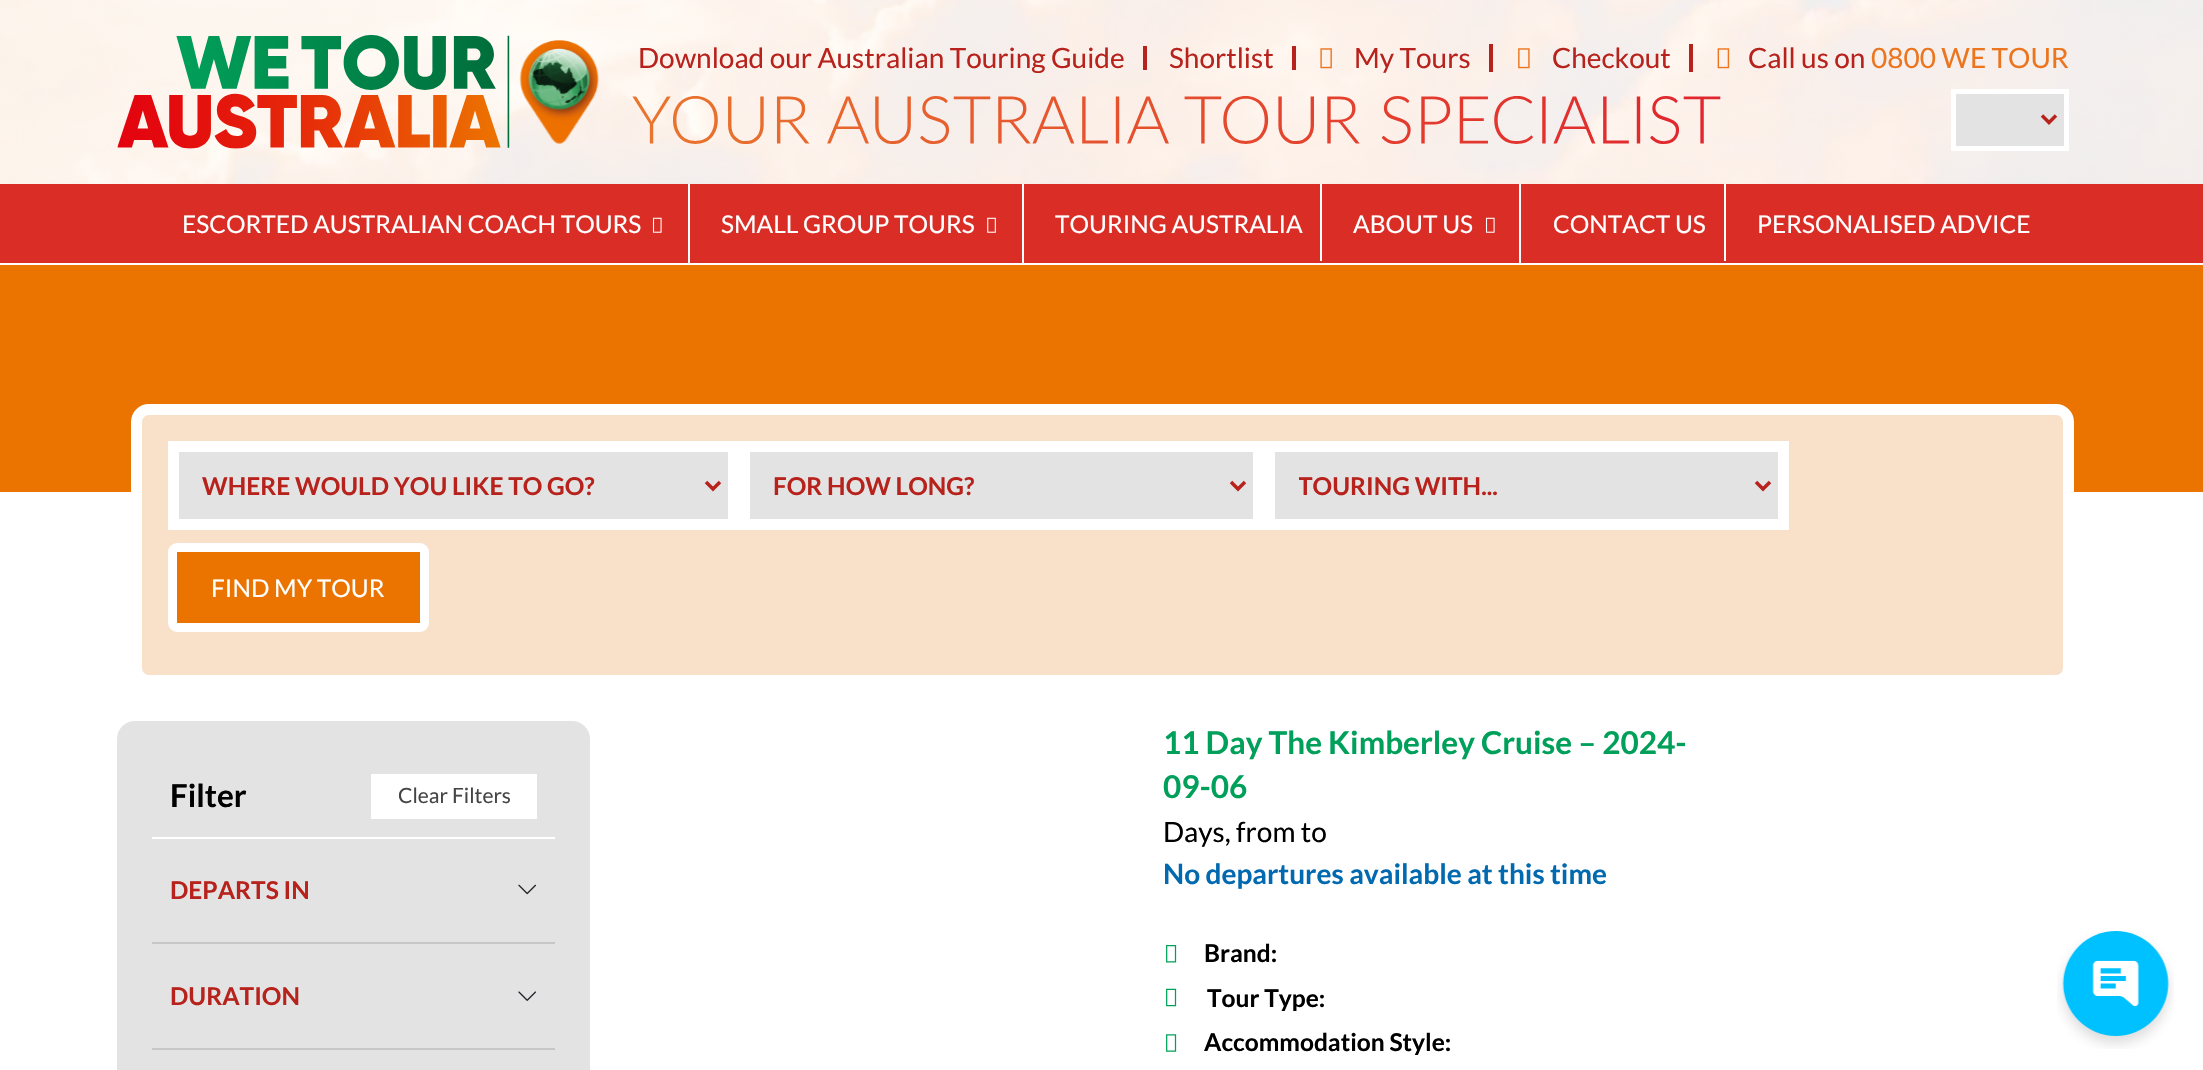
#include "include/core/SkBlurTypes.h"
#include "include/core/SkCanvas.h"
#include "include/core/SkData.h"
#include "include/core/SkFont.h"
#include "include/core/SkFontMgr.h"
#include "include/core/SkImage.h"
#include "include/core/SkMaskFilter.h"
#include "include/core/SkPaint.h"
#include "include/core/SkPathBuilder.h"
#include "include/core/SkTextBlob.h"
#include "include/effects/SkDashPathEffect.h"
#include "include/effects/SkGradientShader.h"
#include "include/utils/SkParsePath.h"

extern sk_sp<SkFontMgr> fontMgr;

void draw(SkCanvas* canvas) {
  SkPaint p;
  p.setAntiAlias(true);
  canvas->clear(SK_ColorWHITE);
  canvas->drawImageRect(SkImages::DeferredFromEncodedData(SkData::MakeFromFileName("images/1.png")), SkRect::MakeLTRB(0, 0, 2203, 184), SkSamplingOptions());
  canvas->drawImageRect(SkImages::DeferredFromEncodedData(SkData::MakeFromFileName("images/2.png")), SkRect::MakeLTRB(117, 35, 1721, 149), SkSamplingOptions());
  p.setColor(SkColorSetRGB(183, 35, 28));
  canvas->drawRect(SkRect::MakeLTRB(1143, 46, 1147, 70), p);
  canvas->drawRect(SkRect::MakeLTRB(1292, 46, 1296, 70), p);
  canvas->drawRect(SkRect::MakeLTRB(1489, 44, 1493, 72), p);
  canvas->drawImageRect(SkImages::DeferredFromEncodedData(SkData::MakeFromFileName("images/3.png")), SkRect::MakeLTRB(1320, 48, 1332, 69), SkSamplingOptions());
  canvas->drawRect(SkRect::MakeLTRB(1689, 44, 1693, 72), p);
  canvas->drawImageRect(SkImages::DeferredFromEncodedData(SkData::MakeFromFileName("images/4.png")), SkRect::MakeLTRB(1518, 48, 1530, 69), SkSamplingOptions());
  canvas->drawImageRect(SkImages::DeferredFromEncodedData(SkData::MakeFromFileName("images/5.png")), SkRect::MakeLTRB(1717, 48, 1730, 69), SkSamplingOptions());
  p.setColor(SkColorSetRGB(227, 227, 227));
  canvas->drawRect(SkRect::MakeLTRB(1953.5f, 91.5f, 2066.5f, 148.5f), p);
  p.setStyle(SkPaint::kStroke_Style);
  p.setStrokeWidth(5);
  p.setColor(SK_ColorWHITE);
  canvas->drawRect(SkRect::MakeLTRB(1953.5f, 91.5f, 2066.5f, 148.5f), p);
  p.setStrokeWidth(3.5f);
  p.setColor(SkColorSetRGB(183, 35, 28));
  canvas->drawPath(SkPathBuilder().moveTo(2042, 115.5f).lineTo(2049, 122.5f).lineTo(2056, 115.5f).detach(), p);
  p.setStyle(SkPaint::kFill_Style);
  p.setColor(SkColorSetRGB(218, 45, 38));
  canvas->drawRect(SkRect::MakeLTRB(0, 184, 2203, 263), p);
  p.setColor(SK_ColorWHITE);
  canvas->drawRect(SkRect::MakeLTRB(688, 184, 690, 263), p);
  canvas->drawImageRect(SkImages::DeferredFromEncodedData(SkData::MakeFromFileName("images/6.png")), SkRect::MakeLTRB(652, 217, 662, 233), SkSamplingOptions());
  canvas->drawRect(SkRect::MakeLTRB(1022, 184, 1024, 263), p);
  canvas->drawImageRect(SkImages::DeferredFromEncodedData(SkData::MakeFromFileName("images/7.png")), SkRect::MakeLTRB(987, 217, 996, 233), SkSamplingOptions());
  canvas->drawRect(SkRect::MakeLTRB(1320, 184, 1322, 261), p);
  canvas->drawRect(SkRect::MakeLTRB(1519, 184, 1521, 263), p);
  canvas->drawImageRect(SkImages::DeferredFromEncodedData(SkData::MakeFromFileName("images/6.png")), SkRect::MakeLTRB(1485, 217, 1495, 233), SkSamplingOptions());
  canvas->drawRect(SkRect::MakeLTRB(1724, 184, 1726, 261), p);
  p.setColor(SkColorSetRGB(235, 115, 0));
  canvas->drawRect(SkRect::MakeLTRB(0, 265, 2203, 492), p);
  p.setColor(SkColorSetRGB(248, 224, 201));
  canvas->drawRoundRect(SkRect::MakeLTRB(136.5f, 409.5f, 2068.5f, 680.5f), 12.5f, 12.5f, p);
  p.setStyle(SkPaint::kStroke_Style);
  p.setStrokeWidth(11);
  p.setColor(SK_ColorWHITE);
  canvas->drawRoundRect(SkRect::MakeLTRB(136.5f, 409.5f, 2068.5f, 680.5f), 12.5f, 12.5f, p);
  p.setStyle(SkPaint::kFill_Style);
  p.setColor(SkColorSetRGB(227, 227, 227));
  canvas->drawRect(SkRect::MakeLTRB(173.5f, 446.5f, 733.5f, 524.5f), p);
  p.setStyle(SkPaint::kStroke_Style);
  p.setColor(SK_ColorWHITE);
  canvas->drawRect(SkRect::MakeLTRB(173.5f, 446.5f, 733.5f, 524.5f), p);
  p.setStrokeWidth(3.5f);
  p.setColor(SkColorSetRGB(183, 35, 28));
  canvas->drawPath(SkPathBuilder().moveTo(706, 482).lineTo(713, 489).lineTo(720, 482).detach(), p);
  p.setStyle(SkPaint::kFill_Style);
  p.setColor(SkColorSetRGB(227, 227, 227));
  canvas->drawRect(SkRect::MakeLTRB(744.5f, 446.5f, 1258.5f, 524.5f), p);
  p.setStyle(SkPaint::kStroke_Style);
  p.setStrokeWidth(11);
  p.setColor(SK_ColorWHITE);
  canvas->drawRect(SkRect::MakeLTRB(744.5f, 446.5f, 1258.5f, 524.5f), p);
  p.setStrokeWidth(3.5f);
  p.setColor(SkColorSetRGB(183, 35, 28));
  canvas->drawPath(SkPathBuilder().moveTo(1231, 482).lineTo(1238, 489).lineTo(1245, 482).detach(), p);
  p.setStyle(SkPaint::kFill_Style);
  p.setColor(SkColorSetRGB(227, 227, 227));
  canvas->drawRect(SkRect::MakeLTRB(1269.5f, 446.5f, 1783.5f, 524.5f), p);
  p.setStyle(SkPaint::kStroke_Style);
  p.setStrokeWidth(11);
  p.setColor(SK_ColorWHITE);
  canvas->drawRect(SkRect::MakeLTRB(1269.5f, 446.5f, 1783.5f, 524.5f), p);
  p.setStrokeWidth(3.5f);
  p.setColor(SkColorSetRGB(183, 35, 28));
  canvas->drawPath(SkPathBuilder().moveTo(1756, 482).lineTo(1763, 489).lineTo(1770, 482).detach(), p);
  p.setStyle(SkPaint::kFill_Style);
  p.setColor(SkColorSetRGB(235, 115, 0));
  canvas->drawRoundRect(SkRect::MakeLTRB(172.5f, 547.5f, 424.5f, 627.5f), 4.5f, 4.5f, p);
  p.setStyle(SkPaint::kStroke_Style);
  p.setStrokeWidth(9);
  p.setColor(SK_ColorWHITE);
  canvas->drawRoundRect(SkRect::MakeLTRB(172.5f, 547.5f, 424.5f, 627.5f), 4.5f, 4.5f, p);
  p.setStyle(SkPaint::kFill_Style);
  p.setColor(SkColorSetRGB(227, 227, 227));
  canvas->drawRoundRect(SkRect::MakeLTRB(117, 721, 590, 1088), 18, 18, p);
  p.setColor(SK_ColorWHITE);
  canvas->drawRect(SkRect::MakeLTRB(152, 837, 555, 839), p);
  canvas->drawRect(SkRect::MakeLTRB(371, 774, 537, 819), p);
  canvas->drawImageRect(SkImages::DeferredFromEncodedData(SkData::MakeFromFileName("images/8.png")), SkRect::MakeLTRB(518, 884, 536, 895), SkSamplingOptions());
  p.setColor(SkColorSetRGB(199, 199, 199));
  canvas->drawRect(SkRect::MakeLTRB(152, 942, 555, 944), p);
  canvas->drawImageRect(SkImages::DeferredFromEncodedData(SkData::MakeFromFileName("images/9.png")), SkRect::MakeLTRB(518, 991, 536, 1001), SkSamplingOptions());
  canvas->drawRect(SkRect::MakeLTRB(152, 1048, 555, 1050), p);
  canvas->drawImageRect(SkImages::DeferredFromEncodedData(SkData::MakeFromFileName("images/10.png")), SkRect::MakeLTRB(1166, 945, 1177, 963), SkSamplingOptions());
  canvas->drawImageRect(SkImages::DeferredFromEncodedData(SkData::MakeFromFileName("images/11.png")), SkRect::MakeLTRB(1166, 988, 1177, 1007), SkSamplingOptions());
  canvas->drawImageRect(SkImages::DeferredFromEncodedData(SkData::MakeFromFileName("images/12.png")), SkRect::MakeLTRB(1166, 1034, 1177, 1052), SkSamplingOptions());
  canvas->drawImageRect(SkImages::DeferredFromEncodedData(SkData::MakeFromFileName("images/13.png")), SkRect::MakeLTRB(2057, 931, 2174, 1049), SkSamplingOptions());
  SkFont font1(fontMgr->matchFamilyStyle("Lato", SkFontStyle::Normal()), 28);
  font1.setSubpixel(true);
  p.setColor(SkColorSetRGB(183, 35, 28));
  canvas->drawString("Download our Australian Touring Guide", 638, 68, font1, p);
  canvas->drawString("Shortlist", 1169, 68, font1, p);
  canvas->drawString("My Tours", 1354, 68, font1, p);
  canvas->drawString("Checkout", 1552, 68, font1, p);
  canvas->drawString("Call us on", 1748, 68, font1, p);
  p.setColor(SkColorSetRGB(236, 118, 32));
  canvas->drawString("0800 WE TOUR", 1871, 68, font1, p);
  SkFont font2(fontMgr->matchFamilyStyle("Lato", SkFontStyle::Normal()), 24.5f);
  font2.setSubpixel(true);
  p.setColor(SK_ColorWHITE);
  canvas->drawString("ESCORTED AUSTRALIAN COACH TOURS", 182, 233, font2, p);
  canvas->drawString("SMALL GROUP TOURS", 721, 233, font2, p);
  canvas->drawString("TOURING AUSTRALIA", 1055, 233, font2, p);
  canvas->drawString("ABOUT US", 1353, 233, font2, p);
  canvas->drawString("CONTACT US", 1553, 233, font2, p);
  canvas->drawString("PERSONALISED ADVICE", 1757, 233, font2, p);
  SkFont font3(fontMgr->matchFamilyStyle("Lato", SkFontStyle::Bold()), 24.5f);
  font3.setSubpixel(true);
  p.setColor(SkColorSetRGB(183, 35, 28));
  canvas->drawString("WHERE WOULD YOU LIKE TO GO?", 202, 495, font3, p);
  canvas->drawString("FOR HOW LONG?", 773, 495, font3, p);
  canvas->save();
  canvas->clipRect(SkRect::MakeLTRB(1299, 469, 1733, 502));
  canvas->drawString("TOURING WITH...", 1298, 495, font3, p);
  canvas->restore();
  p.setColor(SK_ColorWHITE);
  canvas->drawString("FIND MY TOUR", 211, 597, font2, p);
  SkFont font4(fontMgr->matchFamilyStyle("Lato", SkFontStyle::Bold()), 31.5f);
  font4.setSubpixel(true);
  p.setColor(SK_ColorBLACK);
  canvas->drawString("Filter", 170, 807, font4, p);
  SkFont font5(fontMgr->matchFamilyStyle("Lato", SkFontStyle::Normal()), 21);
  font5.setSubpixel(true);
  p.setColor(SkColorSetRGB(69, 69, 69));
  canvas->drawString("Clear Filters", 398, 803, font5, p);
  p.setColor(SkColorSetRGB(183, 35, 28));
  canvas->drawString("DEPARTS IN", 170, 899, font3, p);
  canvas->drawString("DURATION", 170, 1005, font3, p);
  p.setColor(SkColorSetRGB(0, 160, 90));
  canvas->drawString("11 Day The Kimberley Cruise – 2024-", 1163, 754, font4, p);
  canvas->drawString("09-06", 1163, 798, font4, p);
  p.setColor(SK_ColorBLACK);
  canvas->drawString("Days, from to", 1163, 842, font1, p);
  SkFont font6(fontMgr->matchFamilyStyle("Lato", SkFontStyle::Bold()), 28);
  font6.setSubpixel(true);
  p.setColor(SkColorSetRGB(0, 105, 175));
  canvas->drawString("No departures available at this time", 1163, 884, font6, p);
  p.setColor(SK_ColorBLACK);
  canvas->drawString("Brand:", 1204, 962, font3, p);
  canvas->drawString("Tour Type:", 1207, 1007, font3, p);
  canvas->drawString("Accommodation Style:", 1204, 1051, font3, p);
}
